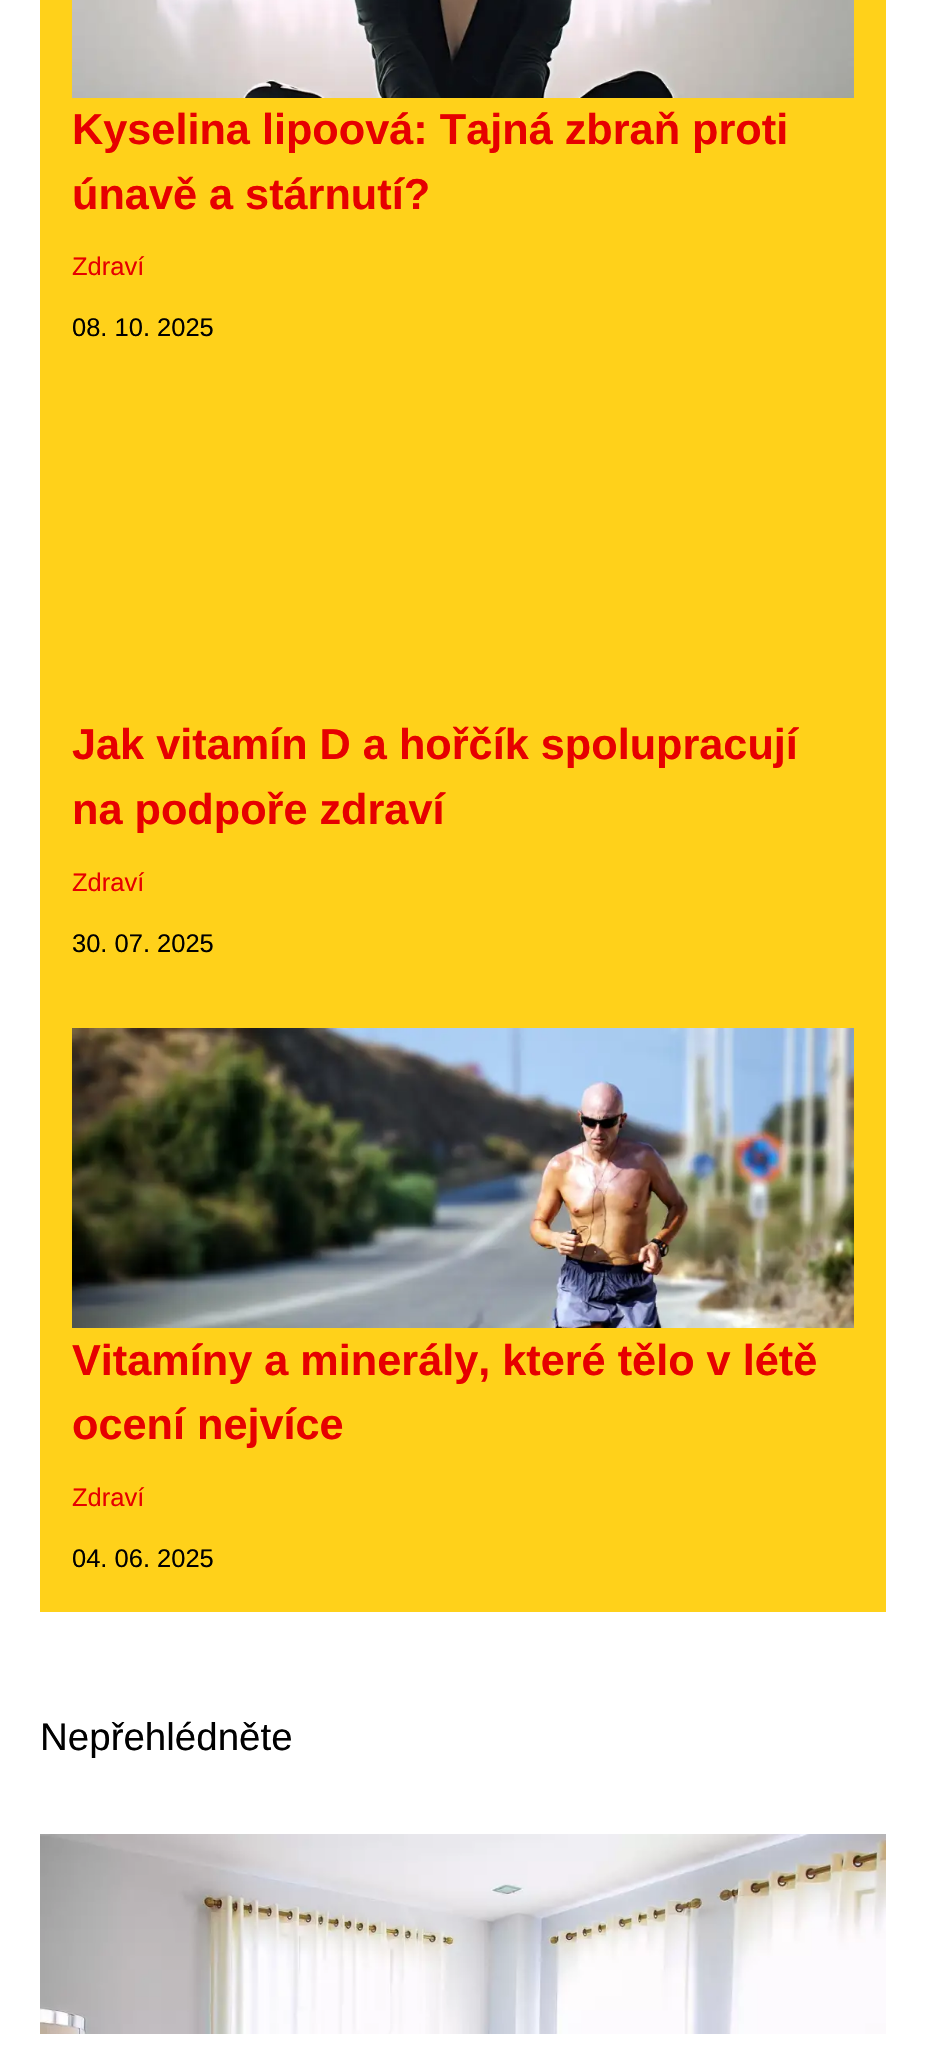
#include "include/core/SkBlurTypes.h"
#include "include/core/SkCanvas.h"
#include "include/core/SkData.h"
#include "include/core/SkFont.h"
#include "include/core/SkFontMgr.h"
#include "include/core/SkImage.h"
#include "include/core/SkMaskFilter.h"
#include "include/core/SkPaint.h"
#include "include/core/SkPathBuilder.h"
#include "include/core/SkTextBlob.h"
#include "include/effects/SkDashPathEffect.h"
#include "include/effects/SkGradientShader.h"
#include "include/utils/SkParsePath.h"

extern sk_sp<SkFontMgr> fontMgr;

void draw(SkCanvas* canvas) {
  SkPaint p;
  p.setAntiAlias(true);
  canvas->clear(SK_ColorWHITE);
  p.setColor(SkColorSetRGB(255, 209, 26));
  canvas->drawRect(SkRect::MakeLTRB(40, 0, 886, 1612), p);
  canvas->drawImageRect(SkImages::DeferredFromEncodedData(SkData::MakeFromFileName("images/1.png")), SkRect::MakeLTRB(72, 0, 854, 98), SkSamplingOptions());
  canvas->drawImageRect(SkImages::DeferredFromEncodedData(SkData::MakeFromFileName("images/2.png")), SkRect::MakeLTRB(72, 1028, 854, 1328), SkSamplingOptions());
  canvas->drawImageRect(SkImages::DeferredFromEncodedData(SkData::MakeFromFileName("images/3.png")), SkRect::MakeLTRB(40, 1834, 886, 2034), SkSamplingOptions());
  SkFont font1(fontMgr->matchFamilyStyle("Liberation Sans", SkFontStyle::Bold()), 43.25f);
  font1.setSubpixel(true);
  p.setColor(SkColorSetRGB(230, 0, 0));
  canvas->drawString("Kyselina lipoová: Tajná zbraň proti", 72, 144, font1, p);
  canvas->drawString("únavě a stárnutí?", 72, 209, font1, p);
  SkFont font2(fontMgr->matchFamilyStyle("Liberation Sans", SkFontStyle::Normal()), 25.5f);
  font2.setSubpixel(true);
  canvas->drawString("Zdraví", 72, 275, font2, p);
  p.setColor(SK_ColorBLACK);
  canvas->drawString("08. 10. 2025", 72, 336, font2, p);
  p.setColor(SkColorSetRGB(230, 0, 0));
  canvas->drawString("Jak vitamín D a hořčík spolupracují", 72, 759, font1, p);
  canvas->drawString("na podpoře zdraví", 72, 824, font1, p);
  canvas->drawString("Zdraví", 72, 891, font2, p);
  p.setColor(SK_ColorBLACK);
  canvas->drawString("30. 07. 2025", 72, 952, font2, p);
  p.setColor(SkColorSetRGB(230, 0, 0));
  canvas->drawString("Vitamíny a minerály, které tělo v létě", 72, 1375, font1, p);
  canvas->drawString("ocení nejvíce", 72, 1439, font1, p);
  canvas->drawString("Zdraví", 72, 1506, font2, p);
  p.setColor(SK_ColorBLACK);
  canvas->drawString("04. 06. 2025", 72, 1567, font2, p);
  SkFont font3(fontMgr->matchFamilyStyle("Liberation Sans", SkFontStyle::Normal()), 38.5f);
  font3.setSubpixel(true);
  canvas->drawString("Nepřehlédněte", 40, 1750, font3, p);
}
